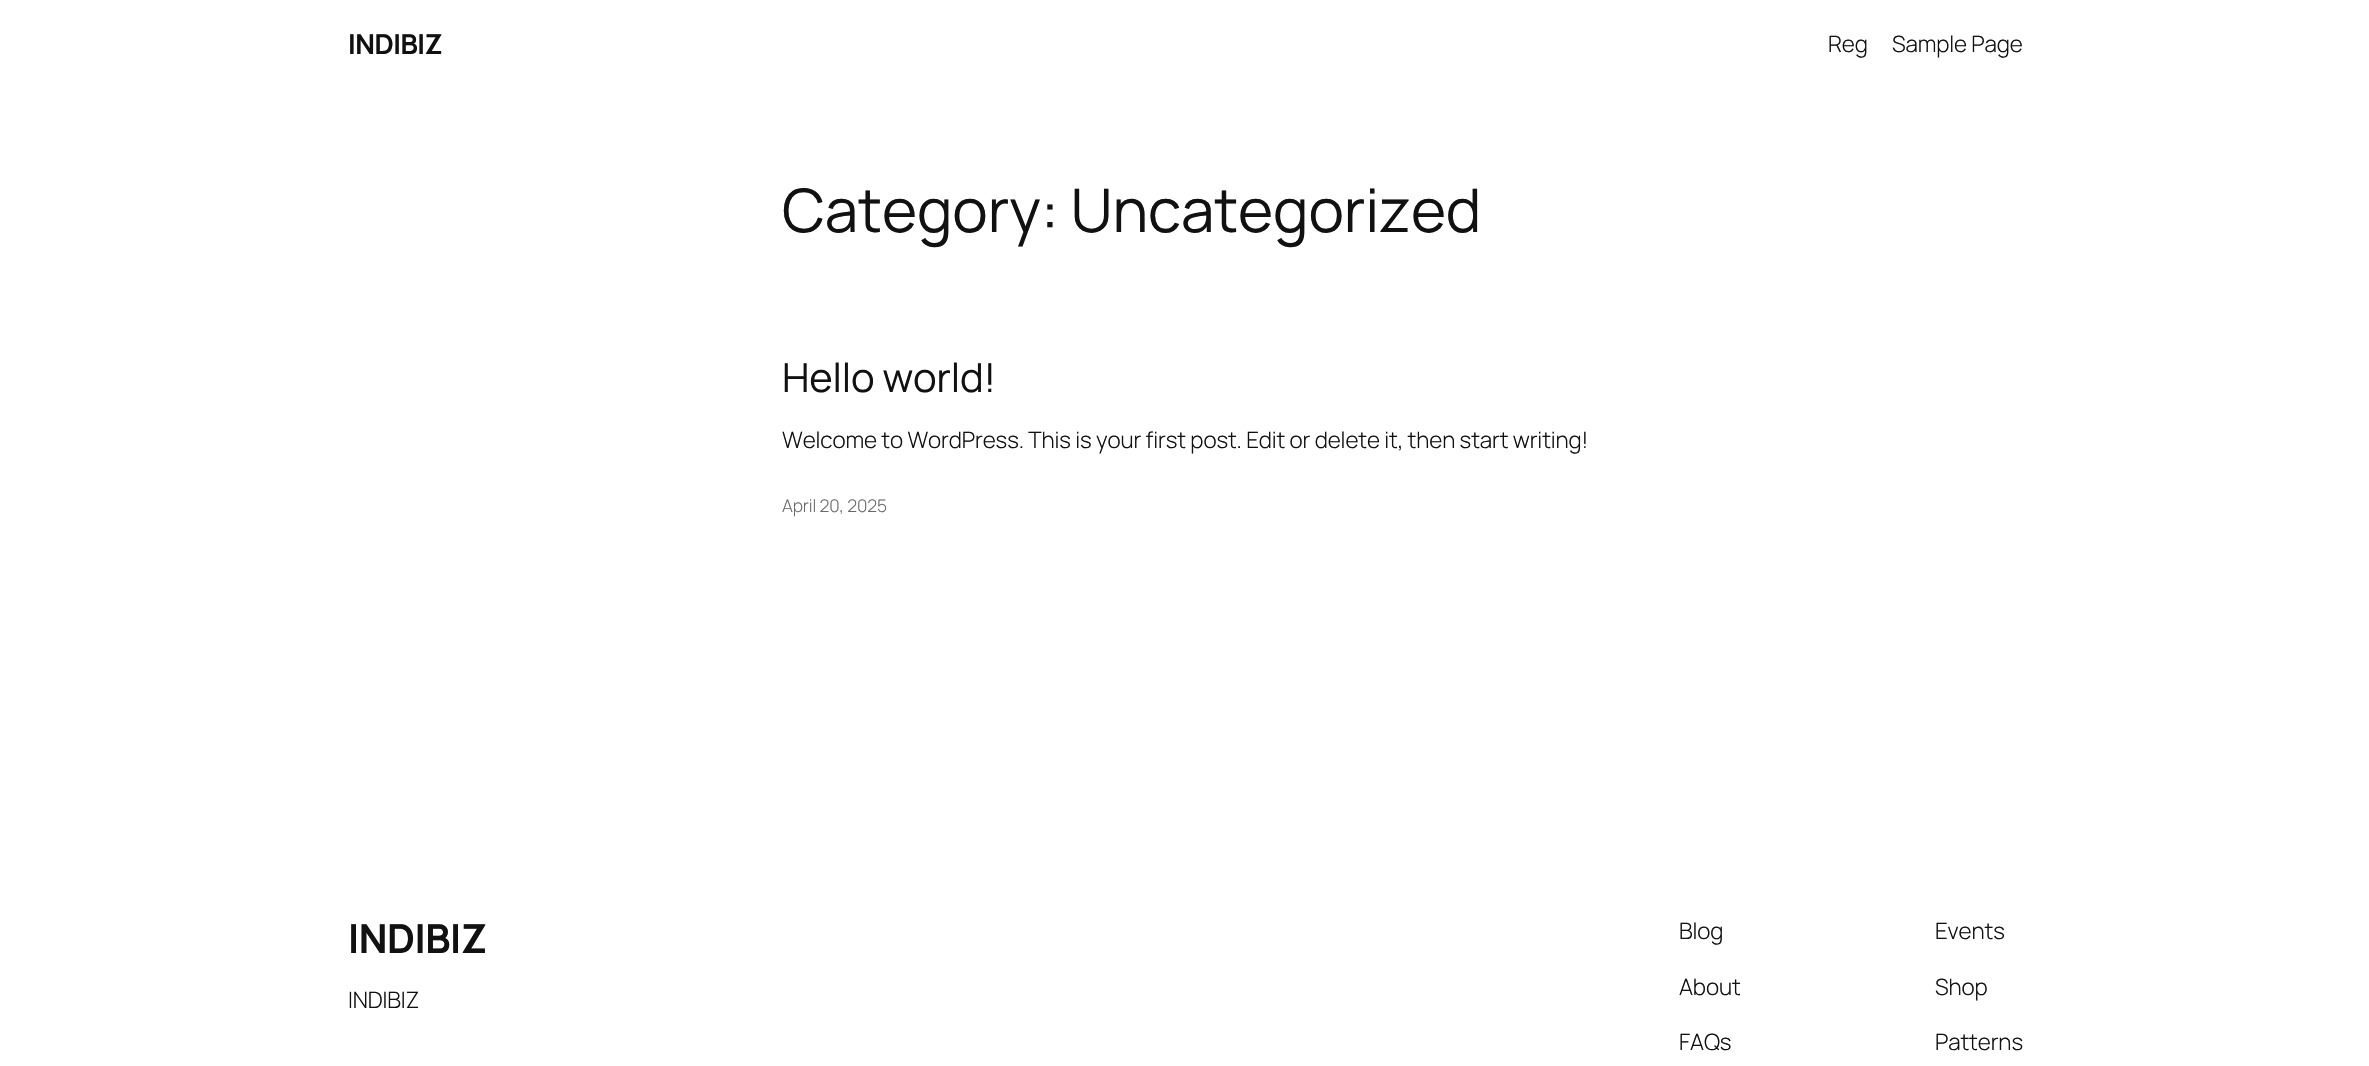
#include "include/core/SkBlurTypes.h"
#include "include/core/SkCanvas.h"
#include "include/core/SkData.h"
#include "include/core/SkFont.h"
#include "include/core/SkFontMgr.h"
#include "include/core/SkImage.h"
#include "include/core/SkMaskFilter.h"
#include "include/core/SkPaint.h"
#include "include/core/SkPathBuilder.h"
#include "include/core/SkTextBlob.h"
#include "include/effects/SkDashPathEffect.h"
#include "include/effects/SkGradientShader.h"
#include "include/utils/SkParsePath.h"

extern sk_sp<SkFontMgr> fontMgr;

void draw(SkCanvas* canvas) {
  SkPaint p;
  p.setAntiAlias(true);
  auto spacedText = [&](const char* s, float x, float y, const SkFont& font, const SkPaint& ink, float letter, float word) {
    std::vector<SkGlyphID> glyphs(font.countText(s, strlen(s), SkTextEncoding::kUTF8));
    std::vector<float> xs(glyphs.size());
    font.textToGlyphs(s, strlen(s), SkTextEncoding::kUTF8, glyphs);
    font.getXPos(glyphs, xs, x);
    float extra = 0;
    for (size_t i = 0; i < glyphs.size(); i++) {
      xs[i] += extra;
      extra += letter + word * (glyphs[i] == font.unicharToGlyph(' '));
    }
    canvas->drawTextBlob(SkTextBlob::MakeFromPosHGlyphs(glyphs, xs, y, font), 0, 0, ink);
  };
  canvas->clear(SK_ColorWHITE);
  SkFont font1(fontMgr->matchFamilyStyle("Manrope", SkFontStyle::Bold()), 27.5f);
  font1.setSubpixel(true);
  p.setColor(SkColorSetRGB(17, 17, 17));
  spacedText("INDIBIZ", 348, 54, font1, p, -0.5f, 0);
  SkFont font2(fontMgr->matchFamilyStyle("Manrope", SkFontStyle(300, SkFontStyle::kNormal_Width, SkFontStyle::kUpright_Slant)), 22.5f);
  font2.setSubpixel(true);
  spacedText("Reg", 1828, 52, font2, p, -0.12f, 0);
  spacedText("Sample Page", 1892, 52, font2, p, -0.12f, 0);
  SkFont font3(fontMgr->matchFamilyStyle("Manrope", SkFontStyle::Normal()), 60);
  font3.setSubpixel(true);
  spacedText("Category: Uncategorized", 782, 232, font3, p, -0.12f, 0);
  SkFont font4(fontMgr->matchFamilyStyle("Manrope", SkFontStyle::Normal()), 40);
  font4.setSubpixel(true);
  spacedText("Hello world!", 782, 392, font4, p, -0.12f, 0);
  spacedText("Welcome to WordPress. This is your first post. Edit or delete it, then start writing!", 782, 448, font2, p, -0.12f, 0);
  SkFont font5(fontMgr->matchFamilyStyle("Manrope", SkFontStyle(300, SkFontStyle::kNormal_Width, SkFontStyle::kUpright_Slant)), 17.5f);
  font5.setSubpixel(true);
  p.setColor(SkColorSetRGB(104, 104, 104));
  spacedText("April 20, 2025", 782, 512, font5, p, -0.12f, 0);
  SkFont font6(fontMgr->matchFamilyStyle("Manrope", SkFontStyle::Bold()), 40);
  font6.setSubpixel(true);
  p.setColor(SkColorSetRGB(17, 17, 17));
  spacedText("INDIBIZ", 348, 953, font6, p, -0.5f, 0);
  spacedText("INDIBIZ", 348, 1008, font2, p, -0.12f, 0);
  spacedText("Blog", 1679, 939, font2, p, -0.12f, 0);
  spacedText("About", 1679, 995, font2, p, -0.12f, 0);
  spacedText("FAQs", 1679, 1050, font2, p, -0.12f, 0);
  spacedText("Events", 1935, 939, font2, p, -0.12f, 0);
  spacedText("Shop", 1935, 995, font2, p, -0.12f, 0);
  spacedText("Patterns", 1935, 1050, font2, p, -0.12f, 0);
}
